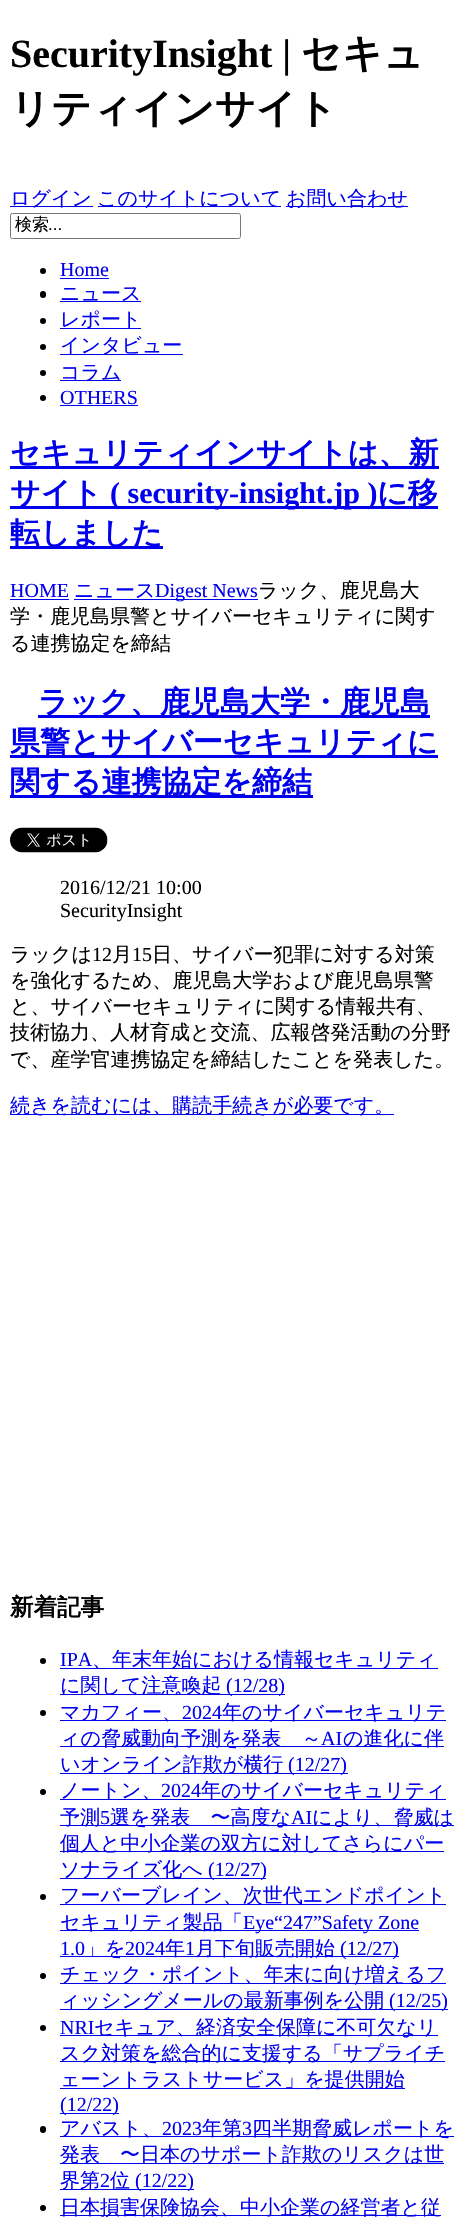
#include "include/core/SkBlurTypes.h"
#include "include/core/SkCanvas.h"
#include "include/core/SkData.h"
#include "include/core/SkFont.h"
#include "include/core/SkFontMgr.h"
#include "include/core/SkImage.h"
#include "include/core/SkMaskFilter.h"
#include "include/core/SkPaint.h"
#include "include/core/SkPathBuilder.h"
#include "include/core/SkTextBlob.h"
#include "include/effects/SkDashPathEffect.h"
#include "include/effects/SkGradientShader.h"
#include "include/utils/SkParsePath.h"

extern sk_sp<SkFontMgr> fontMgr;

void draw(SkCanvas* canvas) {
  SkPaint p;
  p.setAntiAlias(true);
  canvas->clear(SK_ColorWHITE);
  p.setColor(SkColorSetRGB(0, 0, 238));
  canvas->drawRect(SkRect::MakeLTRB(10, 206, 93, 207), p);
  canvas->drawRect(SkRect::MakeLTRB(98, 206, 281, 207), p);
  canvas->drawRect(SkRect::MakeLTRB(286, 206, 408, 207), p);
  p.setStyle(SkPaint::kStroke_Style);
  p.setStrokeWidth(1);
  p.setColor(SkColorSetRGB(118, 118, 118));
  canvas->drawRoundRect(SkRect::MakeLTRB(10.5f, 213.5f, 240.5f, 238.5f), 2, 2, p);
  p.setStyle(SkPaint::kFill_Style);
  p.setColor(SK_ColorBLACK);
  canvas->drawCircle(43, 271, 3, p);
  p.setColor(SkColorSetRGB(0, 0, 238));
  canvas->drawRect(SkRect::MakeLTRB(60, 278, 109, 279), p);
  p.setColor(SK_ColorBLACK);
  canvas->drawRoundRect(SkRect::MakeLTRB(40, 291, 46, 298), 3, 3, p);
  p.setColor(SkColorSetRGB(0, 0, 238));
  canvas->drawRect(SkRect::MakeLTRB(60, 301, 141, 302), p);
  p.setColor(SK_ColorBLACK);
  canvas->drawCircle(43, 321, 3, p);
  p.setColor(SkColorSetRGB(0, 0, 238));
  canvas->drawRect(SkRect::MakeLTRB(60, 328, 141, 329), p);
  p.setColor(SK_ColorBLACK);
  canvas->drawCircle(43, 347, 3, p);
  p.setColor(SkColorSetRGB(0, 0, 238));
  canvas->drawRect(SkRect::MakeLTRB(60, 354, 183, 355), p);
  p.setColor(SK_ColorBLACK);
  canvas->drawCircle(43, 373, 3, p);
  p.setColor(SkColorSetRGB(0, 0, 238));
  canvas->drawRect(SkRect::MakeLTRB(60, 380, 121, 381), p);
  p.setColor(SK_ColorBLACK);
  canvas->drawCircle(43, 398, 3, p);
  p.setColor(SkColorSetRGB(0, 0, 238));
  canvas->drawRect(SkRect::MakeLTRB(60, 405, 138, 406), p);
  canvas->drawRect(SkRect::MakeLTRB(10, 466, 439, 469), p);
  canvas->drawRect(SkRect::MakeLTRB(10, 506, 438, 509), p);
  canvas->drawRect(SkRect::MakeLTRB(10, 546, 163, 549), p);
  canvas->drawRect(SkRect::MakeLTRB(10, 599, 69, 600), p);
  canvas->drawRect(SkRect::MakeLTRB(74, 599, 258, 600), p);
  canvas->drawRect(SkRect::MakeLTRB(38, 715, 430, 718), p);
  canvas->drawRect(SkRect::MakeLTRB(10, 755, 438, 758), p);
  canvas->drawRect(SkRect::MakeLTRB(10, 795, 313, 798), p);
  canvas->drawImageRect(SkImages::DeferredFromEncodedData(SkData::MakeFromFileName("images/1.png")), SkRect::MakeLTRB(10, 827, 108, 853), SkSamplingOptions());
  canvas->drawRect(SkRect::MakeLTRB(10, 1114, 394, 1115), p);
  p.setColor(SK_ColorBLACK);
  canvas->drawCircle(43, 1661, 3, p);
  p.setColor(SkColorSetRGB(0, 0, 238));
  canvas->drawRect(SkRect::MakeLTRB(60, 1668, 438, 1669), p);
  canvas->drawRect(SkRect::MakeLTRB(60, 1694, 285, 1695), p);
  p.setColor(SK_ColorBLACK);
  canvas->drawCircle(43, 1713, 3, p);
  p.setColor(SkColorSetRGB(0, 0, 238));
  canvas->drawRect(SkRect::MakeLTRB(60, 1720, 446, 1721), p);
  canvas->drawRect(SkRect::MakeLTRB(60, 1746, 444, 1747), p);
  canvas->drawRect(SkRect::MakeLTRB(60, 1773, 348, 1774), p);
  p.setColor(SK_ColorBLACK);
  canvas->drawCircle(43, 1792, 3, p);
  p.setColor(SkColorSetRGB(0, 0, 238));
  canvas->drawRect(SkRect::MakeLTRB(60, 1799, 446, 1800), p);
  canvas->drawRect(SkRect::MakeLTRB(60, 1825, 454, 1826), p);
  canvas->drawRect(SkRect::MakeLTRB(60, 1851, 444, 1852), p);
  canvas->drawRect(SkRect::MakeLTRB(60, 1878, 266, 1879), p);
  p.setColor(SK_ColorBLACK);
  canvas->drawCircle(43, 1897, 3, p);
  p.setColor(SkColorSetRGB(0, 0, 238));
  canvas->drawRect(SkRect::MakeLTRB(60, 1904, 446, 1905), p);
  canvas->drawRect(SkRect::MakeLTRB(60, 1930, 419, 1931), p);
  canvas->drawRect(SkRect::MakeLTRB(60, 1956, 399, 1957), p);
  p.setColor(SK_ColorBLACK);
  canvas->drawCircle(43, 1976, 3, p);
  p.setColor(SkColorSetRGB(0, 0, 238));
  canvas->drawRect(SkRect::MakeLTRB(60, 1983, 446, 1984), p);
  canvas->drawRect(SkRect::MakeLTRB(60, 2009, 448, 2010), p);
  p.setColor(SK_ColorBLACK);
  canvas->drawCircle(43, 2028, 3, p);
  p.setColor(SkColorSetRGB(0, 0, 238));
  canvas->drawRect(SkRect::MakeLTRB(60, 2035, 438, 2036), p);
  canvas->drawRect(SkRect::MakeLTRB(60, 2061, 445, 2062), p);
  canvas->drawRect(SkRect::MakeLTRB(60, 2088, 405, 2089), p);
  canvas->drawRect(SkRect::MakeLTRB(60, 2113, 119, 2114), p);
  p.setColor(SK_ColorBLACK);
  canvas->drawRoundRect(SkRect::MakeLTRB(40, 2126, 46, 2133), 3, 3, p);
  p.setColor(SkColorSetRGB(0, 0, 238));
  canvas->drawRect(SkRect::MakeLTRB(60, 2136, 454, 2137), p);
  canvas->drawRect(SkRect::MakeLTRB(60, 2163, 444, 2164), p);
  canvas->drawRect(SkRect::MakeLTRB(60, 2189, 194, 2190), p);
  p.setColor(SK_ColorBLACK);
  canvas->drawCircle(43, 2208, 3, p);
  p.setColor(SkColorSetRGB(0, 0, 238));
  canvas->drawRect(SkRect::MakeLTRB(60, 2215, 441, 2216), p);
  SkFont font1(fontMgr->matchFamilyStyle("Liberation Serif", SkFontStyle::Bold()), 40);
  font1.setSubpixel(true);
  p.setColor(SK_ColorBLACK);
  canvas->drawString("SecurityInsight |", 10, 67, font1, p);
  SkFont font2(fontMgr->matchFamilyStyle("WenQuanYi Zen Hei", SkFontStyle::Bold()), 40);
  font2.setSubpixel(true);
  canvas->drawString("セキュ", 301, 67, font2, p);
  canvas->drawString("リティインサイト", 10, 122, font2, p);
  SkFont font3(fontMgr->matchFamilyStyle("WenQuanYi Zen Hei", SkFontStyle(500, SkFontStyle::kNormal_Width, SkFontStyle::kUpright_Slant)), 20);
  font3.setSubpixel(true);
  p.setColor(SkColorSetRGB(0, 0, 238));
  canvas->drawString("ログイン", 10, 205, font3, p);
  canvas->drawString("このサイトについて", 97, 205, font3, p);
  canvas->drawString("お問い合わせ", 286, 205, font3, p);
  SkFont font4(fontMgr->matchFamilyStyle("WenQuanYi Zen Hei", SkFontStyle(500, SkFontStyle::kNormal_Width, SkFontStyle::kUpright_Slant)), 17);
  font4.setSubpixel(true);
  p.setColor(SK_ColorBLACK);
  canvas->drawString("検索", 15, 230, font4, p);
  SkFont font5(fontMgr->matchFamilyStyle("Liberation Sans", SkFontStyle::Normal()), 17);
  font5.setSubpixel(true);
  canvas->drawString("...", 48, 230, font5, p);
  SkFont font6(fontMgr->matchFamilyStyle("Liberation Serif", SkFontStyle::Normal()), 20);
  font6.setSubpixel(true);
  p.setColor(SkColorSetRGB(0, 0, 238));
  canvas->drawString("Home", 60, 276, font6, p);
  canvas->drawString("ニュース", 60, 300, font3, p);
  canvas->drawString("レポート", 60, 326, font3, p);
  canvas->drawString("インタビュー", 60, 352, font3, p);
  canvas->drawString("コラム", 60, 379, font3, p);
  canvas->drawString("OTHERS", 60, 404, font6, p);
  SkFont font7(fontMgr->matchFamilyStyle("WenQuanYi Zen Hei", SkFontStyle::Bold()), 30);
  font7.setSubpixel(true);
  canvas->drawString("セキュリティインサイトは、新", 10, 463, font7, p);
  canvas->drawString("サイト", 10, 503, font7, p);
  SkFont font8(fontMgr->matchFamilyStyle("Liberation Serif", SkFontStyle::Bold()), 30);
  font8.setSubpixel(true);
  canvas->drawString("( security-insight.jp )", 110, 503, font8, p);
  canvas->drawString("に移", 377, 503, font7, p);
  canvas->drawString("転しました", 10, 543, font7, p);
  canvas->drawString("HOME", 10, 597, font6, p);
  canvas->drawString("ニュース", 74, 597, font3, p);
  canvas->drawString("Digest News", 155, 597, font6, p);
  p.setColor(SK_ColorBLACK);
  canvas->drawString("ラック、鹿児島大", 258, 597, font3, p);
  canvas->drawString("学・鹿児島県警とサイバーセキュリティに関す", 10, 623, font3, p);
  canvas->drawString("る連携協定を締結", 10, 650, font3, p);
  p.setColor(SkColorSetRGB(0, 0, 238));
  canvas->drawString("ラック、鹿児島大学・鹿児島", 38, 712, font7, p);
  canvas->drawString("県警とサイバーセキュリティに", 10, 752, font7, p);
  canvas->drawString("関する連携協定を締結", 10, 792, font7, p);
  p.setColor(SK_ColorBLACK);
  canvas->drawString("2016/12/21 10:00", 60, 894, font6, p);
  canvas->drawString("SecurityInsight", 60, 917, font6, p);
  canvas->drawString("ラックは", 10, 961, font3, p);
  canvas->drawString("12", 92, 961, font6, p);
  canvas->drawString("月", 112, 961, font3, p);
  canvas->drawString("15", 132, 961, font6, p);
  canvas->drawString("日、サイバー犯罪に対する対策", 152, 961, font3, p);
  canvas->drawString("を強化するため、鹿児島大学および鹿児島県警", 10, 987, font3, p);
  canvas->drawString("と、サイバーセキュリティに関する情報共有、", 10, 1013, font3, p);
  canvas->drawString("技術協力、人材育成と交流、広報啓発活動の分野", 10, 1039, font3, p);
  canvas->drawString("で、産学官連携協定を締結したことを発表した。", 10, 1066, font3, p);
  p.setColor(SkColorSetRGB(0, 0, 238));
  canvas->drawString("続きを読むには、購読手続きが必要です。", 10, 1112, font3, p);
  SkFont font9(fontMgr->matchFamilyStyle("WenQuanYi Zen Hei", SkFontStyle::Bold()), 23.5f);
  font9.setSubpixel(true);
  p.setColor(SK_ColorBLACK);
  canvas->drawString("新着記事", 10, 1615, font9, p);
  p.setColor(SkColorSetRGB(0, 0, 238));
  canvas->drawString("IPA", 60, 1666, font6, p);
  canvas->drawString("、年末年始における情報セキュリティ", 92, 1666, font3, p);
  canvas->drawString("に関して注意喚起", 60, 1692, font3, p);
  canvas->drawString("(12/28)", 226, 1692, font6, p);
  canvas->drawString("マカフィー、", 60, 1719, font3, p);
  canvas->drawString("2024", 182, 1719, font6, p);
  canvas->drawString("年のサイバーセキュリテ", 222, 1719, font3, p);
  canvas->drawString("ィの脅威動向予測を発表　～", 60, 1745, font3, p);
  canvas->drawString("AI", 321, 1745, font6, p);
  canvas->drawString("の進化に伴", 343, 1745, font3, p);
  canvas->drawString("いオンライン詐欺が横行", 60, 1771, font3, p);
  canvas->drawString("(12/27)", 288, 1771, font6, p);
  canvas->drawString("ノートン、", 60, 1797, font3, p);
  canvas->drawString("2024", 161, 1797, font6, p);
  canvas->drawString("年のサイバーセキュリティ", 201, 1797, font3, p);
  canvas->drawString("予測", 60, 1824, font3, p);
  canvas->drawString("5", 100, 1824, font6, p);
  canvas->drawString("選を発表　〜高度な", 110, 1824, font3, p);
  canvas->drawString("AI", 291, 1824, font6, p);
  canvas->drawString("により、脅威は", 312, 1824, font3, p);
  canvas->drawString("個人と中小企業の双方に対してさらにパー", 60, 1850, font3, p);
  canvas->drawString("ソナライズ化へ", 60, 1876, font3, p);
  canvas->drawString("(12/27)", 208, 1876, font6, p);
  canvas->drawString("フーバーブレイン、次世代エンドポイント", 60, 1902, font3, p);
  canvas->drawString("セキュリティ製品「", 60, 1929, font3, p);
  canvas->drawString("Eye“247”Safety Zone", 243, 1929, font6, p);
  canvas->drawString("1.0", 60, 1955, font6, p);
  canvas->drawString("」を", 85, 1955, font3, p);
  canvas->drawString("2024", 125, 1955, font6, p);
  canvas->drawString("年", 165, 1955, font3, p);
  canvas->drawString("1", 185, 1955, font6, p);
  canvas->drawString("月下旬販売開始", 195, 1955, font3, p);
  canvas->drawString("(12/27)", 340, 1955, font6, p);
  canvas->drawString("チェック・ポイント、年末に向け増えるフ", 60, 1981, font3, p);
  canvas->drawString("ィッシングメールの最新事例を公開", 60, 2007, font3, p);
  canvas->drawString("(12/25)", 389, 2007, font6, p);
  canvas->drawString("NRI", 60, 2034, font6, p);
  canvas->drawString("セキュア、経済安全保障に不可欠なリ", 94, 2034, font3, p);
  canvas->drawString("スク対策を総合的に支援する「サプライチ", 60, 2060, font3, p);
  canvas->drawString("ェーントラストサービス」を提供開始", 60, 2086, font3, p);
  canvas->drawString("(12/22)", 60, 2111, font6, p);
  canvas->drawString("アバスト、", 60, 2135, font3, p);
  canvas->drawString("2023", 162, 2135, font6, p);
  canvas->drawString("年第", 202, 2135, font3, p);
  canvas->drawString("3", 242, 2135, font6, p);
  canvas->drawString("四半期脅威レポートを", 252, 2135, font3, p);
  canvas->drawString("発表　〜日本のサポート詐欺のリスクは世", 60, 2161, font3, p);
  canvas->drawString("界第", 60, 2187, font3, p);
  canvas->drawString("2", 100, 2187, font6, p);
  canvas->drawString("位", 110, 2187, font3, p);
  canvas->drawString("(12/22)", 135, 2187, font6, p);
  canvas->drawString("日本損害保険協会、中小企業の経営者と従", 60, 2214, font3, p);
}
